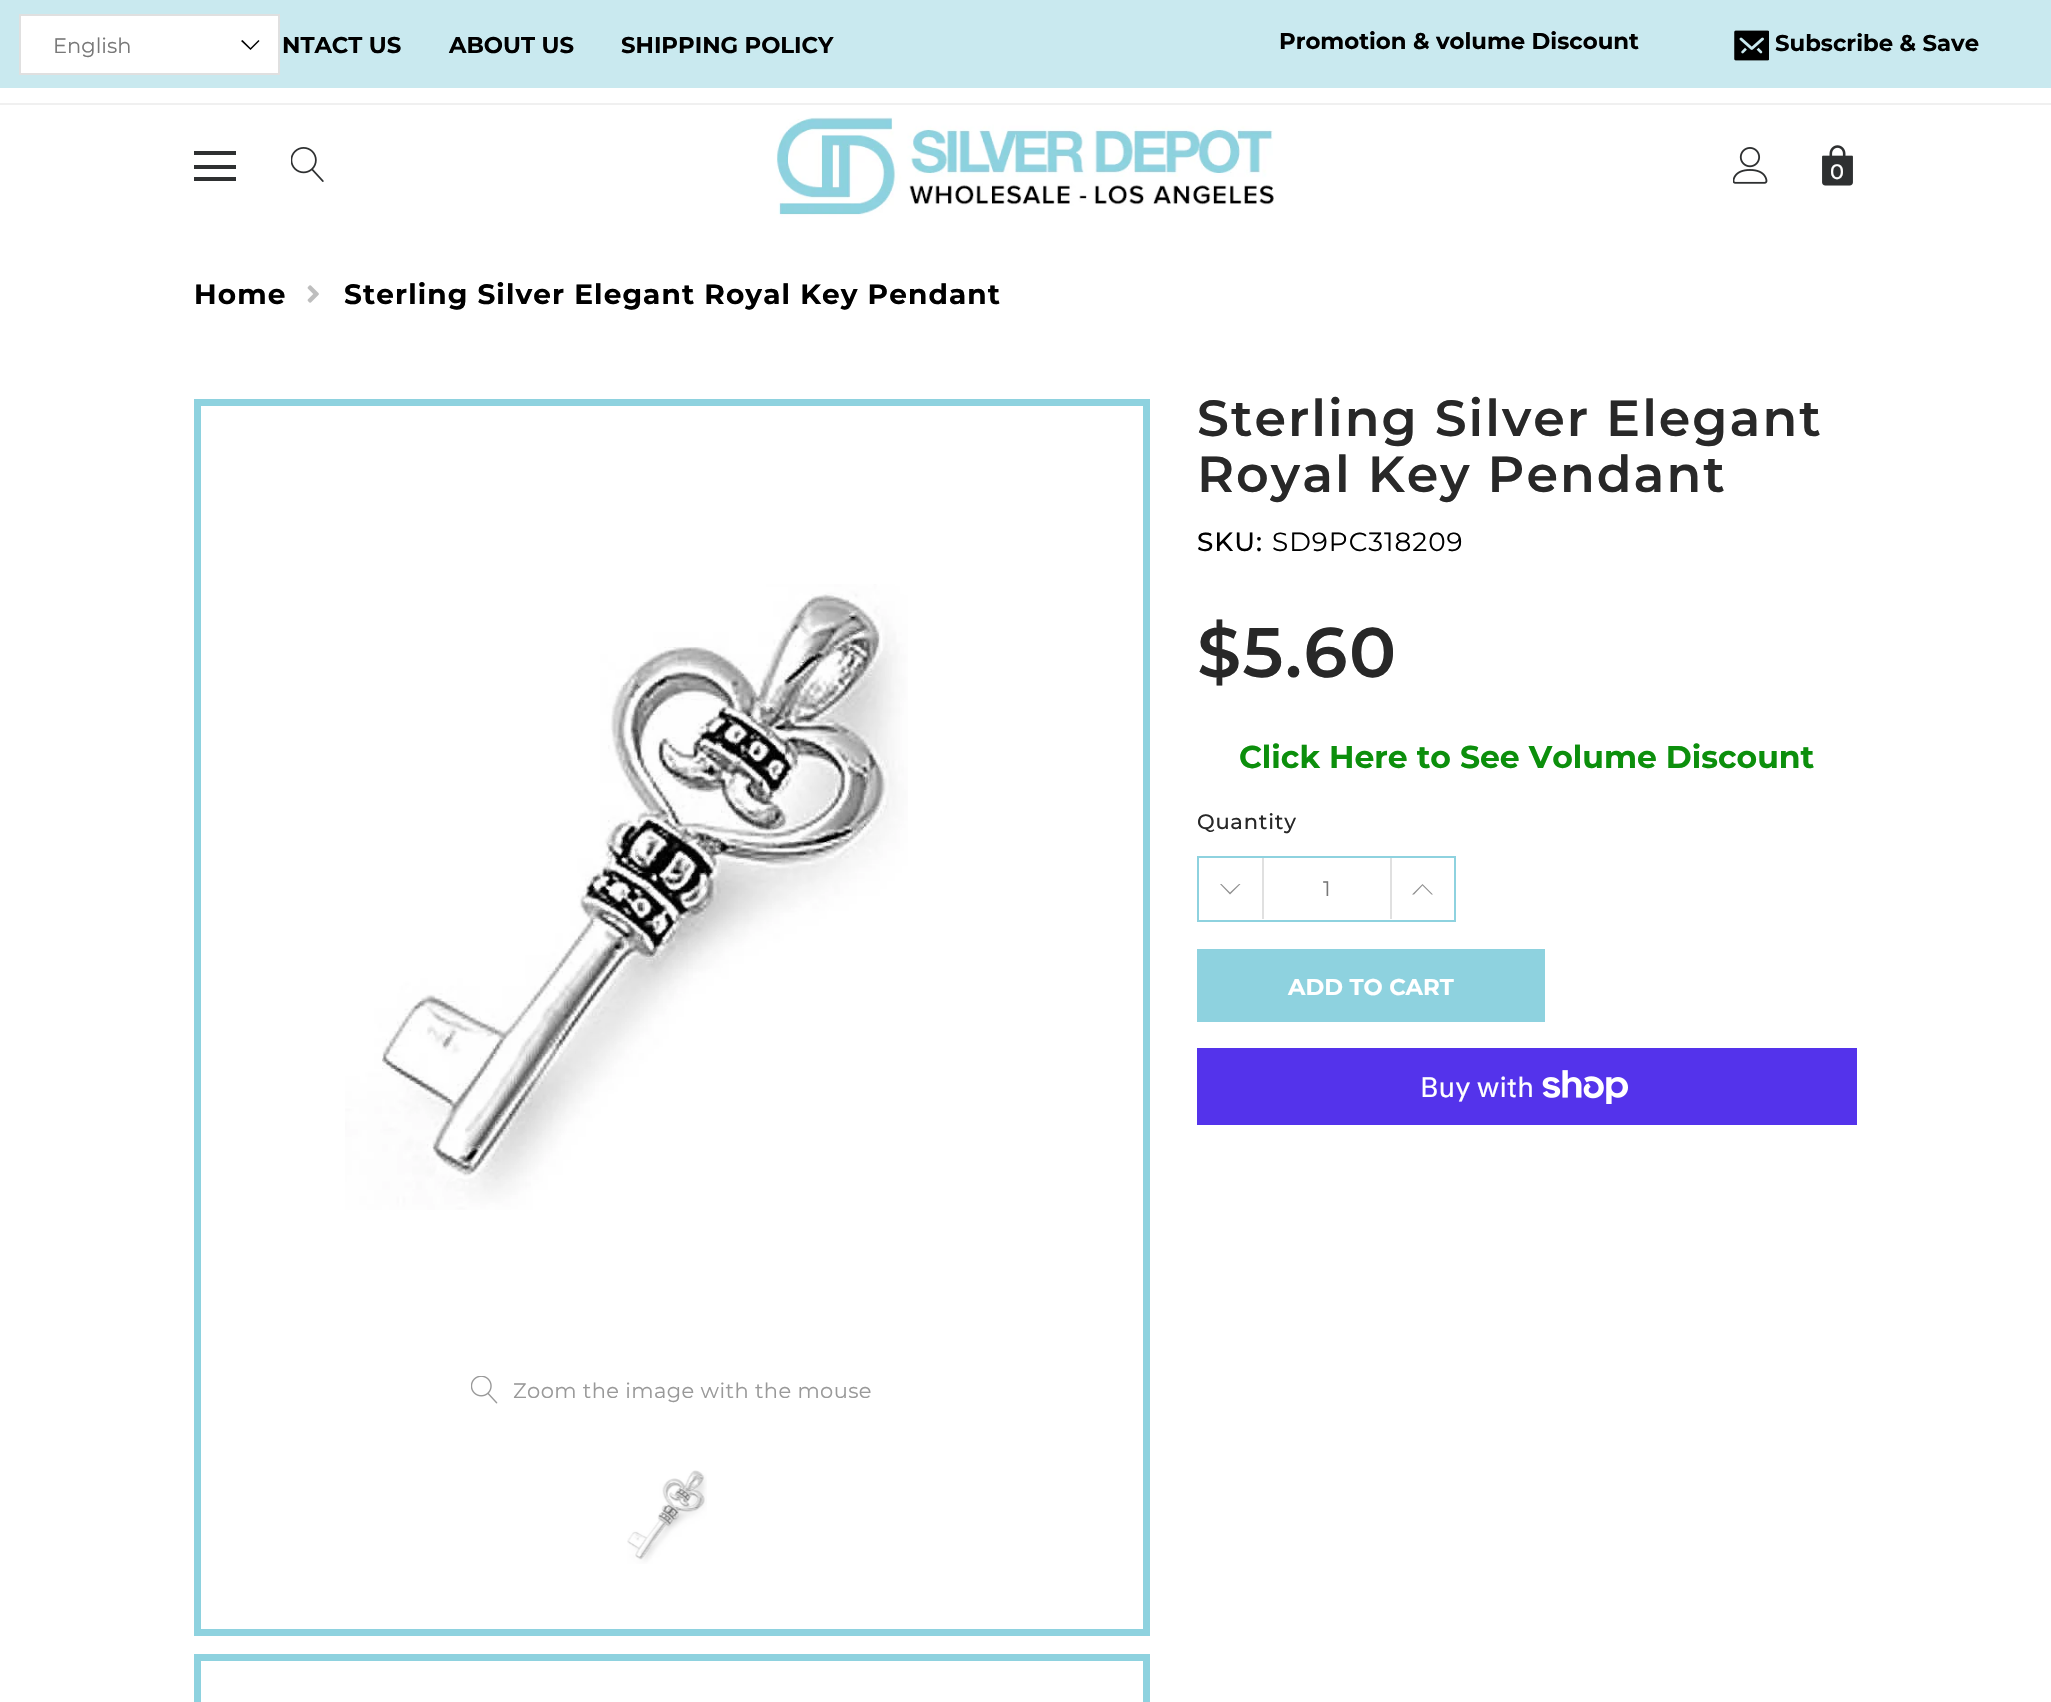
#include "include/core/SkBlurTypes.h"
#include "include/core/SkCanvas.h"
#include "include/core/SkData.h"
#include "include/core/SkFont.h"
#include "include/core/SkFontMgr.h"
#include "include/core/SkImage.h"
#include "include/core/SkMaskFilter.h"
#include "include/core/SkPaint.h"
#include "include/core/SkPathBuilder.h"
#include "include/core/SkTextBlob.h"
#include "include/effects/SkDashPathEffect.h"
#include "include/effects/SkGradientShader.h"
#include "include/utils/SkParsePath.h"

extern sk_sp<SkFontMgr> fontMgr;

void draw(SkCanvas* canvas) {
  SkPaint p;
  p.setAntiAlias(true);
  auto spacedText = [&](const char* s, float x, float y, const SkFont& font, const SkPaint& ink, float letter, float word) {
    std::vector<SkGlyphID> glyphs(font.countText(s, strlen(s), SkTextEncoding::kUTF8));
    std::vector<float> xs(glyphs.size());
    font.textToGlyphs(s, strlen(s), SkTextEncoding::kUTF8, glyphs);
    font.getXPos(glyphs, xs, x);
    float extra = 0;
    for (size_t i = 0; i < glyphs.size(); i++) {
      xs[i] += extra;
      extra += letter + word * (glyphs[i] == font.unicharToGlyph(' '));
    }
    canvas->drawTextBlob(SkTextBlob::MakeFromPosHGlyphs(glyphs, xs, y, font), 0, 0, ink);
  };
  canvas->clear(SK_ColorWHITE);
  p.setColor(SkColorSetRGB(201, 233, 239));
  canvas->drawRect(SkRect::MakeLTRB(0, 0, 2051, 88), p);
  p.setColor(SK_ColorWHITE);
  canvas->drawRect(SkRect::MakeLTRB(21, 16, 278, 73), p);
  p.setColor(SK_ColorBLACK);
  canvas->drawPath(SkPathBuilder().moveTo(250.5f, 50).lineTo(241, 41).lineTo(242.5f, 40).lineTo(250.5f, 48).lineTo(258.5f, 40).lineTo(259.5f, 41).close().detach(), p);
  p.setStyle(SkPaint::kStroke_Style);
  p.setStrokeWidth(2);
  p.setColor(SkColorSetRGB(224, 224, 224));
  canvas->drawRect(SkRect::MakeLTRB(20, 15, 279, 74), p);
  canvas->drawImageRect(SkImages::DeferredFromEncodedData(SkData::MakeFromFileName("images/1.png")), SkRect::MakeLTRB(1734, 30, 1769, 61), SkSamplingOptions());
  p.setColor(SkColorSetARGB(15, 0, 0, 0));
  canvas->drawRect(SkRect::MakeLTRB(-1, 104, 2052, 228), p);
  p.setStyle(SkPaint::kFill_Style);
  p.setColor(SkColorSetRGB(46, 48, 49));
  canvas->drawRect(SkRect::MakeLTRB(194, 151, 236, 155), p);
  canvas->drawRect(SkRect::MakeLTRB(194, 165, 236, 169), p);
  canvas->drawRect(SkRect::MakeLTRB(194, 177, 236, 181), p);
  canvas->drawImageRect(SkImages::DeferredFromEncodedData(SkData::MakeFromFileName("images/2.png")), SkRect::MakeLTRB(291, 147, 324, 182), SkSamplingOptions());
  canvas->drawImageRect(SkImages::DeferredFromEncodedData(SkData::MakeFromFileName("images/3.png")), SkRect::MakeLTRB(776, 117, 1274, 218), SkSamplingOptions());
  canvas->drawImageRect(SkImages::DeferredFromEncodedData(SkData::MakeFromFileName("images/4.png")), SkRect::MakeLTRB(1733, 147, 1768, 184), SkSamplingOptions());
  canvas->drawImageRect(SkImages::DeferredFromEncodedData(SkData::MakeFromFileName("images/5.png")), SkRect::MakeLTRB(1822, 145, 1853, 186), SkSamplingOptions());
  p.setColor(SK_ColorWHITE);
  canvas->drawRect(SkRect::MakeLTRB(0, 227, 2051, 229), p);
  canvas->drawImageRect(SkImages::DeferredFromEncodedData(SkData::MakeFromFileName("images/6.png")), SkRect::MakeLTRB(307, 285, 319, 303), SkSamplingOptions());
  p.setStyle(SkPaint::kStroke_Style);
  p.setColor(SkColorSetRGB(142, 210, 223));
  canvas->drawRect(SkRect::MakeLTRB(1198, 857, 1455, 921), p);
  p.setStyle(SkPaint::kFill_Style);
  p.setColor(SkColorSetRGB(144, 144, 144));
  canvas->drawPath(SkPathBuilder().moveTo(1230, 892.5f).lineTo(1221.5f, 884).lineTo(1220, 884).lineTo(1230, 894.5f).lineTo(1240.5f, 884).lineTo(1239, 884).close().detach(), p);
  p.setColor(SkColorSetRGB(224, 224, 224));
  canvas->drawRect(SkRect::MakeLTRB(1390, 858, 1392, 919), p);
  canvas->drawRect(SkRect::MakeLTRB(1262, 858, 1264, 919), p);
  p.setColor(SkColorSetRGB(144, 144, 144));
  canvas->drawPath(SkPathBuilder().moveTo(1422.5f, 885.5f).lineTo(1431.5f, 894.5f).lineTo(1433, 894.5f).lineTo(1422.5f, 884).lineTo(1412, 894.5f).lineTo(1414, 894.5f).close().detach(), p);
  p.setColor(SkColorSetRGB(142, 210, 223));
  canvas->drawRect(SkRect::MakeLTRB(1197, 949, 1545, 1022), p);
  p.setColor(SkColorSetRGB(84, 51, 235));
  canvas->drawRect(SkRect::MakeLTRB(1197, 1048, 1857, 1125), p);
  canvas->drawImageRect(SkImages::DeferredFromEncodedData(SkData::MakeFromFileName("images/7.png")), SkRect::MakeLTRB(1542, 1070, 1628, 1104), SkSamplingOptions());
  p.setStyle(SkPaint::kStroke_Style);
  p.setStrokeWidth(7);
  p.setColor(SkColorSetRGB(142, 210, 223));
  canvas->drawRect(SkRect::MakeLTRB(197.5f, 402.5f, 1146.5f, 1632.5f), p);
  canvas->drawImageRect(SkImages::DeferredFromEncodedData(SkData::MakeFromFileName("images/8.png")), SkRect::MakeLTRB(345, 584, 908, 1210), SkSamplingOptions());
  canvas->drawImageRect(SkImages::DeferredFromEncodedData(SkData::MakeFromFileName("images/9.png")), SkRect::MakeLTRB(471, 1376, 498, 1404), SkSamplingOptions());
  canvas->drawImageRect(SkImages::DeferredFromEncodedData(SkData::MakeFromFileName("images/10.png")), SkRect::MakeLTRB(627, 1470, 707, 1564), SkSamplingOptions());
  canvas->drawRect(SkRect::MakeLTRB(197.5f, 1657.5f, 1146.5f, 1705.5f), p);
  SkFont font1(fontMgr->matchFamilyStyle("Montserrat", SkFontStyle::Normal()), 21);
  font1.setSubpixel(true);
  p.setStyle(SkPaint::kFill_Style);
  p.setColor(SkColorSetRGB(120, 120, 120));
  canvas->drawString("English", 53, 53, font1, p);
  SkFont font2(fontMgr->matchFamilyStyle("Montserrat", SkFontStyle::Bold()), 22.75f);
  font2.setSubpixel(true);
  p.setColor(SK_ColorBLACK);
  canvas->drawString("NTACT US", 282, 53, font2, p);
  canvas->drawString("ABOUT US", 449, 53, font2, p);
  canvas->drawString("SHIPPING POLICY", 621, 53, font2, p);
  canvas->drawString("Promotion & volume Discount", 1279, 49, font2, p);
  canvas->drawString("Subscribe & Save", 1775, 51, font2, p);
  SkFont font3(fontMgr->matchFamilyStyle("Montserrat", SkFontStyle(500, SkFontStyle::kNormal_Width, SkFontStyle::kUpright_Slant)), 21);
  font3.setSubpixel(true);
  p.setColor(SK_ColorWHITE);
  canvas->drawString("0", 1830, 179, font3, p);
  SkFont font4(fontMgr->matchFamilyStyle("Montserrat", SkFontStyle::Bold()), 28);
  font4.setSubpixel(true);
  p.setColor(SK_ColorBLACK);
  spacedText("Home", 194, 304, font4, p, 1.1f, 0);
  spacedText("Sterling Silver Elegant Royal Key Pendant", 344, 304, font4, p, 1.1f, 0);
  SkFont font5(fontMgr->matchFamilyStyle("Montserrat", SkFontStyle(600, SkFontStyle::kNormal_Width, SkFontStyle::kUpright_Slant)), 50.75f);
  font5.setSubpixel(true);
  p.setColor(SkColorSetRGB(40, 40, 40));
  spacedText("Sterling Silver Elegant", 1197, 436, font5, p, 2, 0);
  spacedText("Royal Key Pendant", 1197, 492, font5, p, 2, 0);
  SkFont font6(fontMgr->matchFamilyStyle("Montserrat", SkFontStyle(500, SkFontStyle::kNormal_Width, SkFontStyle::kUpright_Slant)), 26.25f);
  font6.setSubpixel(true);
  p.setColor(SK_ColorBLACK);
  spacedText("SKU:", 1197, 551, font6, p, 1, 0);
  SkFont font7(fontMgr->matchFamilyStyle("Montserrat", SkFontStyle::Normal()), 26.25f);
  font7.setSubpixel(true);
  spacedText("SD9PC318209", 1272, 551, font7, p, 1, 0);
  SkFont font8(fontMgr->matchFamilyStyle("Montserrat", SkFontStyle(600, SkFontStyle::kNormal_Width, SkFontStyle::kUpright_Slant)), 70);
  font8.setSubpixel(true);
  p.setColor(SkColorSetRGB(40, 40, 40));
  spacedText("$5.60", 1197, 677, font8, p, 1.5f, 0);
  SkFont font9(fontMgr->matchFamilyStyle("Montserrat", SkFontStyle::Bold()), 31.5f);
  font9.setSubpixel(true);
  p.setColor(SkColorSetRGB(12, 143, 12));
  canvas->drawString("Click Here to See Volume Discount", 1239, 768, font9, p);
  p.setColor(SkColorSetRGB(40, 40, 40));
  spacedText("Quantity", 1197, 829, font3, p, 0.75f, 0);
  p.setColor(SkColorSetRGB(120, 120, 120));
  canvas->drawString("1", 1323, 896, font1, p);
  p.setColor(SK_ColorWHITE);
  canvas->drawString("ADD TO CART", 1288, 995, font2, p);
  SkFont font10(fontMgr->matchFamilyStyle("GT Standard", SkFontStyle::Normal()), 28);
  font10.setSubpixel(true);
  canvas->drawString("Buy with", 1420, 1097, font10, p);
  p.setColor(SkColorSetRGB(153, 153, 153));
  spacedText("Zoom the image with the mouse", 513, 1398, font1, p, 0.4f, 0);
}
